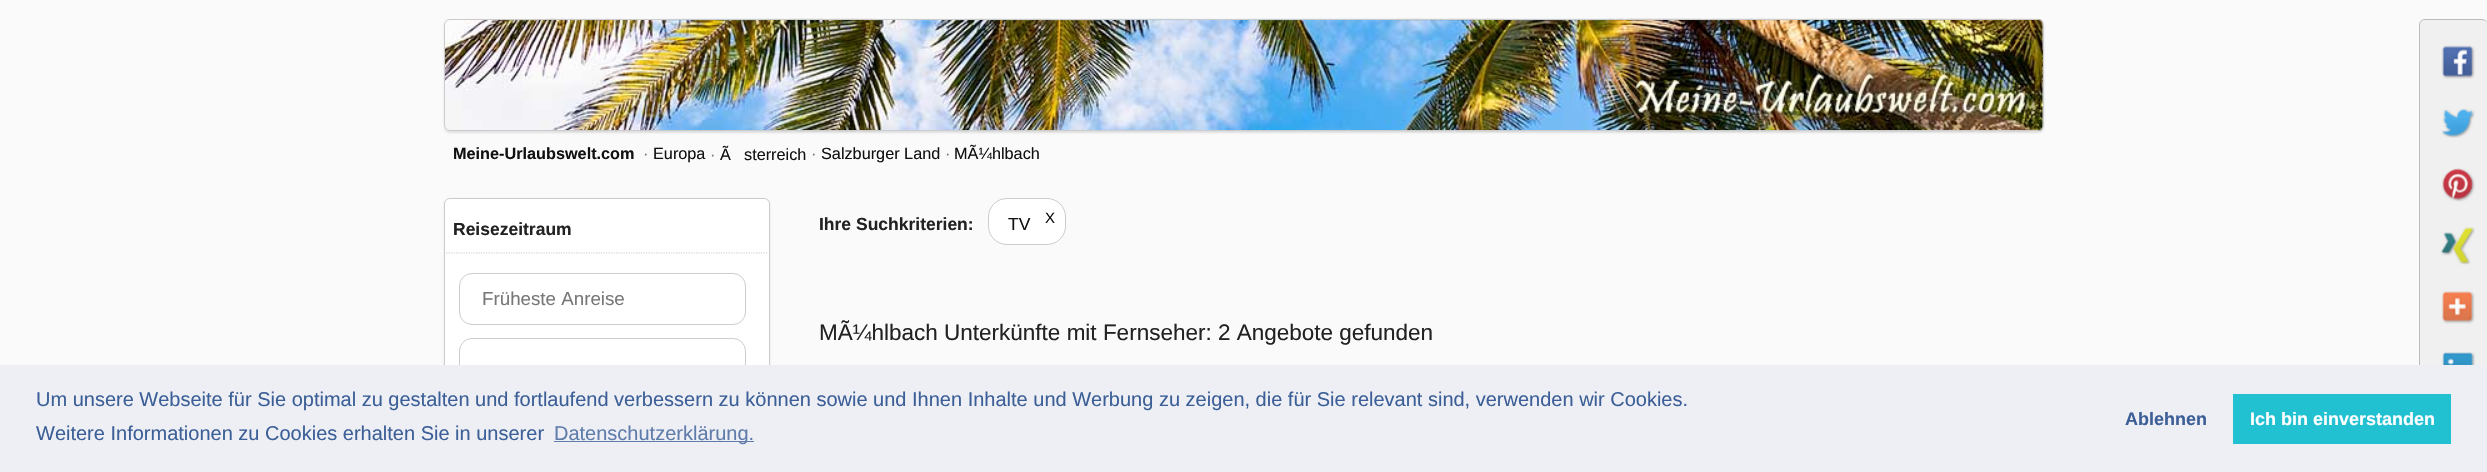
#include "include/core/SkBlurTypes.h"
#include "include/core/SkCanvas.h"
#include "include/core/SkData.h"
#include "include/core/SkFont.h"
#include "include/core/SkFontMgr.h"
#include "include/core/SkImage.h"
#include "include/core/SkMaskFilter.h"
#include "include/core/SkPaint.h"
#include "include/core/SkPathBuilder.h"
#include "include/core/SkTextBlob.h"
#include "include/effects/SkDashPathEffect.h"
#include "include/effects/SkGradientShader.h"
#include "include/utils/SkParsePath.h"

extern sk_sp<SkFontMgr> fontMgr;

void draw(SkCanvas* canvas) {
  SkPaint p;
  p.setAntiAlias(true);
  canvas->clear(SkColorSetRGB(250, 250, 250));
  p.setColor(SkColorSetARGB(26, 0, 0, 0));
  p.setMaskFilter(SkMaskFilter::MakeBlur(kNormal_SkBlurStyle, 1));
  canvas->drawRoundRect(SkRect::MakeLTRB(444, 20, 2044, 133), 6, 6, p);
  p.setMaskFilter(nullptr);
  canvas->drawImageRect(SkImages::DeferredFromEncodedData(SkData::MakeFromFileName("images/1.png")), SkRect::MakeLTRB(444, 18, 2044, 132), SkSamplingOptions());
  p.setStyle(SkPaint::kStroke_Style);
  p.setStrokeWidth(1);
  p.setColor(SkColorSetRGB(204, 204, 204));
  canvas->drawRoundRect(SkRect::MakeLTRB(444.5f, 19.5f, 2043.5f, 130.5f), 5.5f, 5.5f, p);
  p.setStyle(SkPaint::kFill_Style);
  p.setColor(SkColorSetRGB(240, 240, 240));
  canvas->drawRoundRect(SkRect::MakeLTRB(2419, 19, 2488, 463), 6, 6, p);
  p.setColor(SkColorSetRGB(187, 187, 187));
  canvas->drawPath(SkPathBuilder(SkPathFillType::kEvenOdd).moveTo(2425, 19).lineTo(2481, 19).cubicTo(2485, 19, 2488, 22, 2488, 25).lineTo(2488, 456).cubicTo(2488, 460, 2485, 462, 2481, 462).lineTo(2425, 462).cubicTo(2422, 462, 2419, 460, 2419, 456).lineTo(2419, 25).cubicTo(2419, 22, 2422, 19, 2425, 19).close().moveTo(2425, 20).lineTo(2481, 20).cubicTo(2485, 20, 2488, 22, 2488, 25).lineTo(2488, 456).cubicTo(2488, 459, 2485, 461, 2481, 461).lineTo(2425, 461).cubicTo(2422, 461, 2420, 459, 2420, 456).lineTo(2420, 25).cubicTo(2420, 22, 2422, 20, 2425, 20).close().detach(), p);
  canvas->drawImageRect(SkImages::DeferredFromEncodedData(SkData::MakeFromFileName("images/2.png")), SkRect::MakeLTRB(2441, 45, 2475, 79), SkSamplingOptions());
  canvas->drawImageRect(SkImages::DeferredFromEncodedData(SkData::MakeFromFileName("images/3.png")), SkRect::MakeLTRB(2441, 108, 2475, 138), SkSamplingOptions());
  canvas->drawImageRect(SkImages::DeferredFromEncodedData(SkData::MakeFromFileName("images/4.png")), SkRect::MakeLTRB(2441, 168, 2475, 202), SkSamplingOptions());
  canvas->drawImageRect(SkImages::DeferredFromEncodedData(SkData::MakeFromFileName("images/5.png")), SkRect::MakeLTRB(2441, 227, 2475, 265), SkSamplingOptions());
  canvas->drawImageRect(SkImages::DeferredFromEncodedData(SkData::MakeFromFileName("images/6.png")), SkRect::MakeLTRB(2441, 291, 2475, 324), SkSamplingOptions());
  canvas->drawImageRect(SkImages::DeferredFromEncodedData(SkData::MakeFromFileName("images/7.png")), SkRect::MakeLTRB(2442, 352, 2475, 365), SkSamplingOptions());
  p.setColor(SkColorSetARGB(26, 0, 0, 0));
  p.setMaskFilter(SkMaskFilter::MakeBlur(kNormal_SkBlurStyle, 1));
  canvas->drawRoundRect(SkRect::MakeLTRB(444, 199, 770, 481), 6, 6, p);
  p.setMaskFilter(nullptr);
  p.setColor(SK_ColorWHITE);
  canvas->drawRoundRect(SkRect::MakeLTRB(444.5f, 198.5f, 769.5f, 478.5f), 5.5f, 5.5f, p);
  p.setStyle(SkPaint::kStroke_Style);
  p.setColor(SkColorSetRGB(204, 204, 204));
  canvas->drawRoundRect(SkRect::MakeLTRB(444.5f, 198.5f, 769.5f, 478.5f), 5.5f, 5.5f, p);
  p.setStrokeWidth(1.2f);
  p.setPathEffect(SkDashPathEffect::Make({{1.25f, 1.25f}}, 0));
  canvas->drawPath(SkPathBuilder().moveTo(446, 253).lineTo(767.5f, 253).detach(), p);
  p.setPathEffect(nullptr);
  p.setStrokeWidth(1);
  canvas->drawRoundRect(SkRect::MakeLTRB(459.5f, 273.5f, 745.5f, 324.5f), 12.5f, 12.5f, p);
  canvas->drawRoundRect(SkRect::MakeLTRB(459.5f, 338.5f, 745.5f, 389.5f), 12.5f, 12.5f, p);
  p.setStyle(SkPaint::kFill_Style);
  p.setColor(SK_ColorWHITE);
  canvas->drawRoundRect(SkRect::MakeLTRB(988.5f, 198.5f, 1065.5f, 244.5f), 18.5f, 18.5f, p);
  p.setStyle(SkPaint::kStroke_Style);
  p.setColor(SkColorSetRGB(204, 204, 204));
  canvas->drawRoundRect(SkRect::MakeLTRB(988.5f, 198.5f, 1065.5f, 244.5f), 18.5f, 18.5f, p);
  p.setStyle(SkPaint::kFill_Style);
  p.setColor(SkColorSetRGB(237, 239, 245));
  canvas->drawRect(SkRect::MakeLTRB(0, 365, 2487, 472), p);
  p.setColor(SkColorSetRGB(95, 124, 170));
  canvas->drawRect(SkRect::MakeLTRB(554, 441, 754, 442), p);
  p.setColor(SkColorSetRGB(33, 193, 209));
  canvas->drawRect(SkRect::MakeLTRB(2233, 394, 2451, 444), p);
  SkFont font1(fontMgr->matchFamilyStyle("Liberation Sans", SkFontStyle::Bold()), 16.25f);
  font1.setSubpixel(true);
  p.setColor(SkColorSetRGB(17, 17, 17));
  canvas->drawString("Meine-Urlaubswelt.com", 453, 159, font1, p);
  SkFont font2(fontMgr->matchFamilyStyle("Liberation Sans", SkFontStyle::Normal()), 16.25f);
  font2.setSubpixel(true);
  p.setColor(SkColorSetRGB(120, 120, 120));
  canvas->drawString("·", 643, 159, font2, p);
  p.setColor(SkColorSetRGB(17, 17, 17));
  canvas->drawString("Europa", 653, 159, font2, p);
  p.setColor(SkColorSetRGB(120, 120, 120));
  canvas->drawString("·", 710, 160, font2, p);
  p.setColor(SkColorSetRGB(17, 17, 17));
  canvas->drawString("Ã", 720, 160, font2, p);
  canvas->drawString("sterreich", 744, 160, font2, p);
  p.setColor(SkColorSetRGB(120, 120, 120));
  canvas->drawString("·", 811, 159, font2, p);
  p.setColor(SkColorSetRGB(17, 17, 17));
  canvas->drawString("Salzburger Land", 821, 159, font2, p);
  p.setColor(SkColorSetRGB(120, 120, 120));
  canvas->drawString("·", 945, 159, font2, p);
  p.setColor(SkColorSetRGB(17, 17, 17));
  canvas->drawString("MÃ¼hlbach", 954, 159, font2, p);
  SkFont font3(fontMgr->matchFamilyStyle("Liberation Sans", SkFontStyle::Bold()), 17.5f);
  font3.setSubpixel(true);
  p.setColor(SkColorSetRGB(34, 34, 34));
  canvas->drawString("Reisezeitraum", 453, 235, font3, p);
  SkFont font4(fontMgr->matchFamilyStyle("Liberation Sans", SkFontStyle::Normal()), 18.75f);
  font4.setSubpixel(true);
  p.setColor(SkColorSetRGB(120, 120, 120));
  canvas->drawString("Früheste Anreise", 482, 305, font4, p);
  p.setColor(SkColorSetRGB(34, 34, 34));
  canvas->drawString("Ihre Suchkriterien:", 819, 230, font3, p);
  SkFont font5(fontMgr->matchFamilyStyle("Liberation Sans", SkFontStyle::Normal()), 17.5f);
  font5.setSubpixel(true);
  p.setColor(SkColorSetRGB(17, 17, 17));
  canvas->drawString("TV", 1008, 230, font5, p);
  SkFont font6(fontMgr->matchFamilyStyle("Liberation Sans", SkFontStyle::Normal()), 15);
  font6.setSubpixel(true);
  canvas->drawString("Χ", 1045, 223, font6, p);
  SkFont font7(fontMgr->matchFamilyStyle("Liberation Sans", SkFontStyle::Normal()), 22.5f);
  font7.setSubpixel(true);
  p.setColor(SkColorSetRGB(34, 34, 34));
  canvas->drawString("MÃ¼hlbach Unterkünfte mit Fernseher: 2 Angebote gefunden", 819, 340, font7, p);
  SkFont font8(fontMgr->matchFamilyStyle("Liberation Sans", SkFontStyle::Normal()), 20);
  font8.setSubpixel(true);
  p.setColor(SkColorSetRGB(60, 95, 151));
  canvas->drawString("Um unsere Webseite für Sie optimal zu gestalten und fortlaufend verbessern zu können sowie und Ihnen Inhalte und Werbung zu zeigen, die für Sie relevant sind, verwenden wir Cookies.", 36, 406, font8, p);
  canvas->drawString("Weitere Informationen zu Cookies erhalten Sie in unserer", 36, 440, font8, p);
  p.setColor(SkColorSetRGB(95, 124, 170));
  canvas->drawString("Datenschutzerklärung.", 554, 440, font8, p);
  SkFont font9(fontMgr->matchFamilyStyle("Liberation Sans", SkFontStyle::Bold()), 18);
  font9.setSubpixel(true);
  p.setColor(SkColorSetRGB(60, 95, 151));
  canvas->drawString("Ablehnen", 2125, 425, font9, p);
  p.setColor(SK_ColorWHITE);
  canvas->drawString("Ich bin einverstanden", 2250, 425, font9, p);
}
